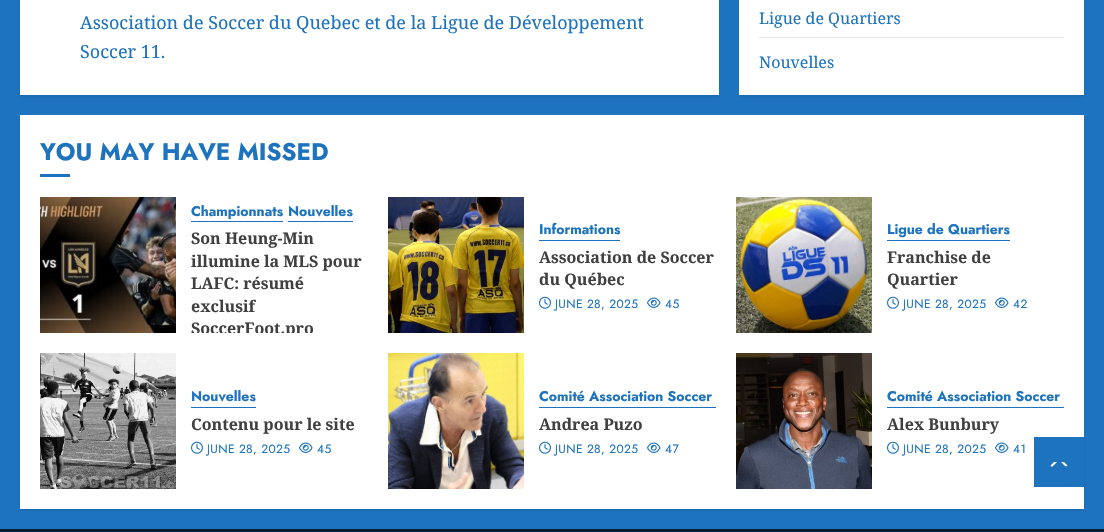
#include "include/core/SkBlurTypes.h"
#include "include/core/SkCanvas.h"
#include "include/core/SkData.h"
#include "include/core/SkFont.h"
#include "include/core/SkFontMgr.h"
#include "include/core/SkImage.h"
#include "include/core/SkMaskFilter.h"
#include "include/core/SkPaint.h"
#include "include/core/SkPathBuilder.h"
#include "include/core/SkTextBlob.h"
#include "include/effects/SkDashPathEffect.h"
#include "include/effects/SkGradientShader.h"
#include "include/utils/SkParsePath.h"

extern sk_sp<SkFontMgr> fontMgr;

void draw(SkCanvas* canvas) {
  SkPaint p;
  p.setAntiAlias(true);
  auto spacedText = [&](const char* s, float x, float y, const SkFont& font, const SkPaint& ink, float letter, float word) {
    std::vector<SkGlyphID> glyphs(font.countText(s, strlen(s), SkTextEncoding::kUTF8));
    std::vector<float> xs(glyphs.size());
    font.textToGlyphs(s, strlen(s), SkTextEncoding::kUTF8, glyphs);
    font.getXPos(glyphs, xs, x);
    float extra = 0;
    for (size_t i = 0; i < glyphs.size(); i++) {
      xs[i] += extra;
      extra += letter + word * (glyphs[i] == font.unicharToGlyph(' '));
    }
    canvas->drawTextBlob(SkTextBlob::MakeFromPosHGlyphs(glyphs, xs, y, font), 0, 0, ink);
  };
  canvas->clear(SkColorSetRGB(30, 115, 190));
  p.setColor(SkColorSetARGB(20, 0, 0, 0));
  p.setMaskFilter(SkMaskFilter::MakeBlur(kNormal_SkBlurStyle, 1));
  canvas->drawRect(SkRect::MakeLTRB(20, -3, 719, 97), p);
  p.setMaskFilter(nullptr);
  p.setColor(SK_ColorWHITE);
  canvas->drawRect(SkRect::MakeLTRB(20, 0, 719, 95), p);
  p.setColor(SkColorSetARGB(20, 0, 0, 0));
  p.setMaskFilter(SkMaskFilter::MakeBlur(kNormal_SkBlurStyle, 1));
  canvas->drawRect(SkRect::MakeLTRB(739, -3, 1084, 97), p);
  p.setMaskFilter(nullptr);
  p.setColor(SK_ColorWHITE);
  canvas->drawRect(SkRect::MakeLTRB(739, 0, 1084, 95), p);
  p.setColor(SkColorSetRGB(230, 230, 230));
  canvas->drawRect(SkRect::MakeLTRB(759, 37, 1064, 38), p);
  p.setColor(SkColorSetARGB(20, 0, 0, 0));
  p.setMaskFilter(SkMaskFilter::MakeBlur(kNormal_SkBlurStyle, 1));
  canvas->drawRect(SkRect::MakeLTRB(20, 117, 1084, 511), p);
  p.setMaskFilter(nullptr);
  p.setColor(SK_ColorWHITE);
  canvas->drawRect(SkRect::MakeLTRB(20, 115, 1084, 509), p);
  p.setColor(SkColorSetRGB(30, 115, 190));
  canvas->drawRect(SkRect::MakeLTRB(40, 174, 70, 177), p);
  canvas->drawImageRect(SkImages::DeferredFromEncodedData(SkData::MakeFromFileName("images/1.png")), SkRect::MakeLTRB(40, 197, 176, 333), SkSamplingOptions());
  canvas->drawRect(SkRect::MakeLTRB(191, 221, 283, 222), p);
  canvas->drawRect(SkRect::MakeLTRB(288, 221, 353, 222), p);
  canvas->drawImageRect(SkImages::DeferredFromEncodedData(SkData::MakeFromFileName("images/2.png")), SkRect::MakeLTRB(388, 197, 524, 333), SkSamplingOptions());
  canvas->drawRect(SkRect::MakeLTRB(539, 240, 620, 241), p);
  canvas->drawImageRect(SkImages::DeferredFromEncodedData(SkData::MakeFromFileName("images/3.png")), SkRect::MakeLTRB(539, 296, 551, 309), SkSamplingOptions());
  canvas->drawImageRect(SkImages::DeferredFromEncodedData(SkData::MakeFromFileName("images/4.png")), SkRect::MakeLTRB(647, 297, 661, 308), SkSamplingOptions());
  canvas->drawImageRect(SkImages::DeferredFromEncodedData(SkData::MakeFromFileName("images/5.png")), SkRect::MakeLTRB(736, 197, 872, 333), SkSamplingOptions());
  canvas->drawRect(SkRect::MakeLTRB(887, 240, 1010, 241), p);
  canvas->drawImageRect(SkImages::DeferredFromEncodedData(SkData::MakeFromFileName("images/3.png")), SkRect::MakeLTRB(887, 296, 899, 309), SkSamplingOptions());
  canvas->drawImageRect(SkImages::DeferredFromEncodedData(SkData::MakeFromFileName("images/4.png")), SkRect::MakeLTRB(995, 297, 1009, 308), SkSamplingOptions());
  canvas->drawImageRect(SkImages::DeferredFromEncodedData(SkData::MakeFromFileName("images/6.png")), SkRect::MakeLTRB(40, 353, 176, 489), SkSamplingOptions());
  canvas->drawRect(SkRect::MakeLTRB(191, 407, 256, 408), p);
  canvas->drawImageRect(SkImages::DeferredFromEncodedData(SkData::MakeFromFileName("images/3.png")), SkRect::MakeLTRB(191, 441, 203, 454), SkSamplingOptions());
  canvas->drawImageRect(SkImages::DeferredFromEncodedData(SkData::MakeFromFileName("images/4.png")), SkRect::MakeLTRB(299, 442, 313, 453), SkSamplingOptions());
  canvas->drawImageRect(SkImages::DeferredFromEncodedData(SkData::MakeFromFileName("images/7.png")), SkRect::MakeLTRB(388, 353, 524, 489), SkSamplingOptions());
  canvas->drawRect(SkRect::MakeLTRB(539, 407, 716, 408), p);
  canvas->drawImageRect(SkImages::DeferredFromEncodedData(SkData::MakeFromFileName("images/3.png")), SkRect::MakeLTRB(539, 441, 551, 454), SkSamplingOptions());
  canvas->drawImageRect(SkImages::DeferredFromEncodedData(SkData::MakeFromFileName("images/4.png")), SkRect::MakeLTRB(647, 442, 661, 453), SkSamplingOptions());
  canvas->drawImageRect(SkImages::DeferredFromEncodedData(SkData::MakeFromFileName("images/8.png")), SkRect::MakeLTRB(736, 353, 872, 489), SkSamplingOptions());
  canvas->drawRect(SkRect::MakeLTRB(887, 407, 1064, 408), p);
  canvas->drawImageRect(SkImages::DeferredFromEncodedData(SkData::MakeFromFileName("images/3.png")), SkRect::MakeLTRB(887, 441, 899, 454), SkSamplingOptions());
  canvas->drawImageRect(SkImages::DeferredFromEncodedData(SkData::MakeFromFileName("images/4.png")), SkRect::MakeLTRB(995, 442, 1009, 453), SkSamplingOptions());
  p.setColor(SkColorSetRGB(8, 29, 48));
  canvas->drawRect(SkRect::MakeLTRB(0, 529, 1104, 532), p);
  p.setColor(SkColorSetRGB(30, 115, 190));
  canvas->drawRect(SkRect::MakeLTRB(1034, 437, 1084, 487), p);
  p.setColor(SK_ColorWHITE);
  canvas->drawPath(SkPathBuilder().moveTo(1054, 467).cubicTo(1057, 467, 1065.5f, 468, 1067.5f, 465.5f).lineTo(1064, 462).lineTo(1054, 462).lineTo(1050.5f, 465.5f).cubicTo(1051, 466.5f, 1052.5f, 467, 1054, 467).close().detach(), p);
  p.setColor(SkColorSetRGB(30, 115, 190));
  canvas->drawPath(SkPathBuilder().moveTo(1069, 470).lineTo(1049, 470).lineTo(1059, 460).close().detach(), p);
  SkFont font1(fontMgr->matchFamilyStyle("Noto Serif", SkFontStyle::Normal()), 18);
  font1.setSubpixel(true);
  canvas->drawString("Association de Soccer du Quebec et de la Ligue de Développement", 80, 29, font1, p);
  canvas->drawString("Soccer 11.", 80, 58, font1, p);
  SkFont font2(fontMgr->matchFamilyStyle("Noto Serif", SkFontStyle::Normal()), 16);
  font2.setSubpixel(true);
  canvas->drawString("Ligue de Quartiers", 759, 24, font2, p);
  canvas->drawString("Nouvelles", 759, 68, font2, p);
  SkFont font3(fontMgr->matchFamilyStyle("Jost", SkFontStyle::Bold()), 24);
  font3.setSubpixel(true);
  canvas->drawString("YOU MAY HAVE MISSED", 40, 160, font3, p);
  SkFont font4(fontMgr->matchFamilyStyle("Jost", SkFontStyle::Bold()), 14);
  font4.setSubpixel(true);
  canvas->drawString("Championnats", 191, 216, font4, p);
  canvas->drawString("Nouvelles", 288, 216, font4, p);
  SkFont font5(fontMgr->matchFamilyStyle("Noto Serif", SkFontStyle::Bold()), 16);
  font5.setSubpixel(true);
  p.setColor(SkColorSetRGB(64, 64, 64));
  canvas->drawString("Son Heung-Min", 191, 244, font5, p);
  canvas->drawString("illumine la MLS pour", 191, 267, font5, p);
  canvas->drawString("LAFC : résumé", 191, 289, font5, p);
  canvas->drawString("exclusif", 191, 312, font5, p);
  canvas->save();
  canvas->clipRect(SkRect::MakeLTRB(176, 197, 368, 333));
  canvas->drawString("SoccerFoot.pro", 191, 334, font5, p);
  canvas->restore();
  p.setColor(SkColorSetRGB(30, 115, 190));
  canvas->drawString("Informations", 539, 234, font4, p);
  p.setColor(SkColorSetRGB(64, 64, 64));
  canvas->drawString("Association de Soccer", 539, 263, font5, p);
  canvas->drawString("du Québec", 539, 285, font5, p);
  SkFont font6(fontMgr->matchFamilyStyle("Jost", SkFontStyle::Normal()), 12);
  font6.setSubpixel(true);
  p.setColor(SkColorSetRGB(30, 115, 190));
  spacedText("JUNE 28, 2025", 555, 308, font6, p, 0.4f, 0);
  spacedText("45", 665, 308, font6, p, 0.4f, 0);
  canvas->drawString("Ligue de Quartiers", 887, 234, font4, p);
  p.setColor(SkColorSetRGB(64, 64, 64));
  canvas->drawString("Franchise de", 887, 263, font5, p);
  canvas->drawString("Quartier", 887, 285, font5, p);
  p.setColor(SkColorSetRGB(30, 115, 190));
  spacedText("JUNE 28, 2025", 903, 308, font6, p, 0.4f, 0);
  spacedText("42", 1013, 308, font6, p, 0.4f, 0);
  canvas->drawString("Nouvelles", 191, 401, font4, p);
  p.setColor(SkColorSetRGB(64, 64, 64));
  canvas->drawString("Contenu pour le site", 191, 430, font5, p);
  p.setColor(SkColorSetRGB(30, 115, 190));
  spacedText("JUNE 28, 2025", 207, 453, font6, p, 0.4f, 0);
  spacedText("45", 317, 453, font6, p, 0.4f, 0);
  canvas->drawString("Comité Association Soccer", 539, 401, font4, p);
  p.setColor(SkColorSetRGB(64, 64, 64));
  canvas->drawString("Andrea Puzo", 539, 430, font5, p);
  p.setColor(SkColorSetRGB(30, 115, 190));
  spacedText("JUNE 28, 2025", 555, 453, font6, p, 0.4f, 0);
  spacedText("47", 665, 453, font6, p, 0.4f, 0);
  canvas->drawString("Comité Association Soccer", 887, 401, font4, p);
  p.setColor(SkColorSetRGB(64, 64, 64));
  canvas->drawString("Alex Bunbury", 887, 430, font5, p);
  p.setColor(SkColorSetRGB(30, 115, 190));
  spacedText("JUNE 28, 2025", 903, 453, font6, p, 0.4f, 0);
  spacedText("41", 1013, 453, font6, p, 0.4f, 0);
}
